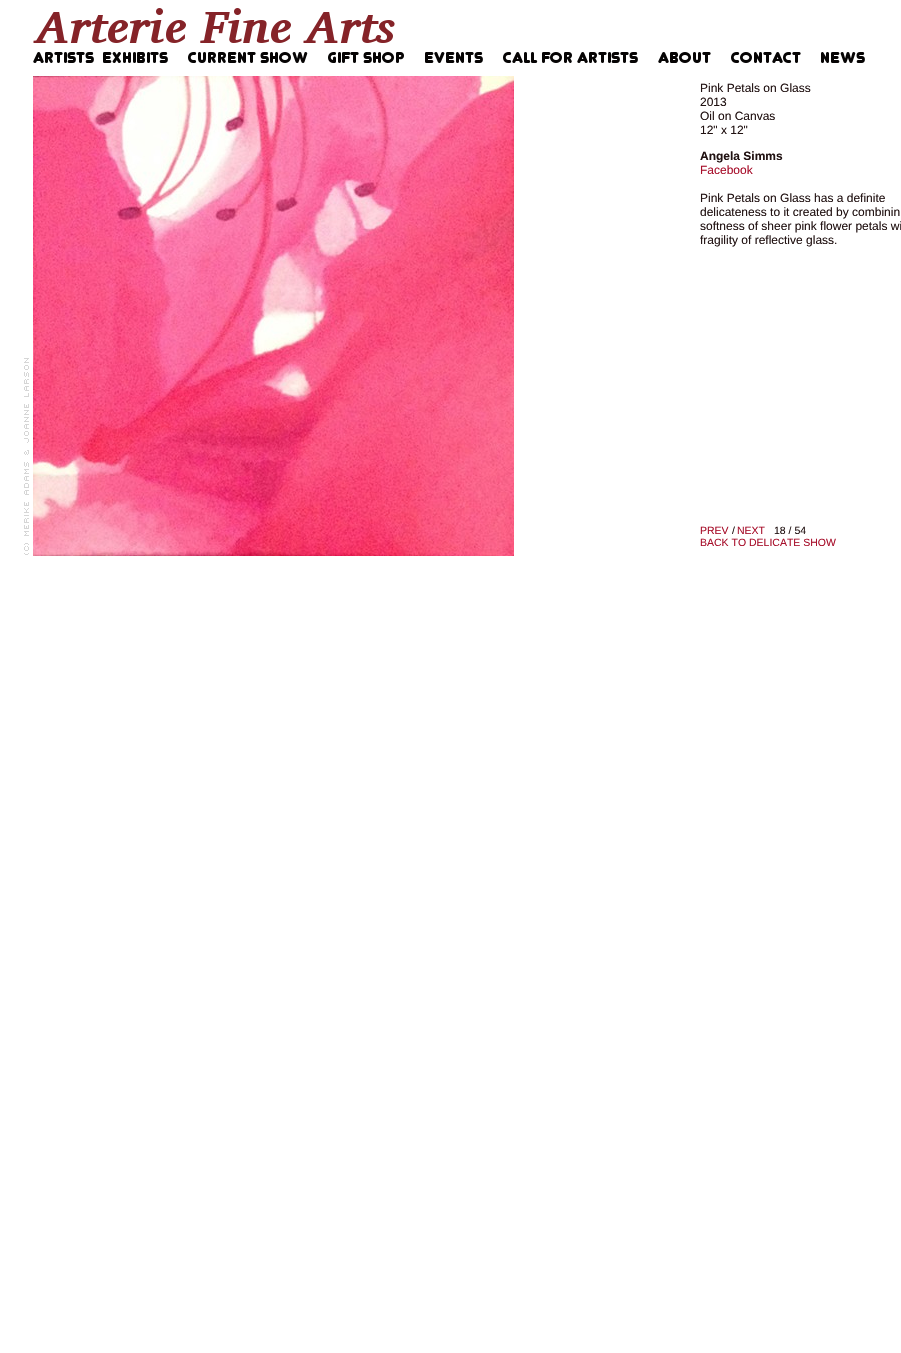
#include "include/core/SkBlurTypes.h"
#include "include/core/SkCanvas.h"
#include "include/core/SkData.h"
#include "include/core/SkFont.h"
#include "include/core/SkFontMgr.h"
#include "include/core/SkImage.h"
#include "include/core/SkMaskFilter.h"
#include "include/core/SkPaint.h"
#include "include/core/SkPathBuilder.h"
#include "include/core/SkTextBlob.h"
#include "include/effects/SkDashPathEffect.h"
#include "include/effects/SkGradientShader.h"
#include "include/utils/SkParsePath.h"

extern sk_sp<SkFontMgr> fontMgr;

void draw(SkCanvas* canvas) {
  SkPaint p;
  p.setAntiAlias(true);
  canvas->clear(SK_ColorWHITE);
  canvas->drawImageRect(SkImages::DeferredFromEncodedData(SkData::MakeFromFileName("images/1.png")), SkRect::MakeLTRB(33, 8, 395, 43), SkSamplingOptions());
  canvas->drawImageRect(SkImages::DeferredFromEncodedData(SkData::MakeFromFileName("images/2.png")), SkRect::MakeLTRB(33, 52, 168, 63), SkSamplingOptions());
  canvas->drawImageRect(SkImages::DeferredFromEncodedData(SkData::MakeFromFileName("images/3.png")), SkRect::MakeLTRB(188, 52, 308, 63), SkSamplingOptions());
  canvas->drawImageRect(SkImages::DeferredFromEncodedData(SkData::MakeFromFileName("images/4.png")), SkRect::MakeLTRB(328, 52, 404, 63), SkSamplingOptions());
  canvas->drawImageRect(SkImages::DeferredFromEncodedData(SkData::MakeFromFileName("images/5.png")), SkRect::MakeLTRB(425, 52, 483, 63), SkSamplingOptions());
  canvas->drawImageRect(SkImages::DeferredFromEncodedData(SkData::MakeFromFileName("images/6.png")), SkRect::MakeLTRB(503, 52, 638, 63), SkSamplingOptions());
  canvas->drawImageRect(SkImages::DeferredFromEncodedData(SkData::MakeFromFileName("images/7.png")), SkRect::MakeLTRB(658, 52, 711, 63), SkSamplingOptions());
  canvas->drawImageRect(SkImages::DeferredFromEncodedData(SkData::MakeFromFileName("images/8.png")), SkRect::MakeLTRB(731, 52, 801, 63), SkSamplingOptions());
  canvas->drawImageRect(SkImages::DeferredFromEncodedData(SkData::MakeFromFileName("images/9.png")), SkRect::MakeLTRB(821, 52, 865, 63), SkSamplingOptions());
  canvas->drawImageRect(SkImages::DeferredFromEncodedData(SkData::MakeFromFileName("images/10.png")), SkRect::MakeLTRB(33, 76, 514, 556), SkSamplingOptions());
  canvas->drawImageRect(SkImages::DeferredFromEncodedData(SkData::MakeFromFileName("images/11.png")), SkRect::MakeLTRB(24, 358, 29, 555), SkSamplingOptions());
  SkFont font1(fontMgr->matchFamilyStyle("Liberation Sans", SkFontStyle::Normal()), 12);
  font1.setSubpixel(true);
  p.setColor(SkColorSetRGB(33, 18, 18));
  canvas->drawString("Pink Petals on Glass", 700, 92, font1, p);
  canvas->drawString("2013", 700, 106, font1, p);
  canvas->drawString("Oil on Canvas", 700, 120, font1, p);
  canvas->drawString("12\" x 12\"", 700, 134, font1, p);
  SkFont font2(fontMgr->matchFamilyStyle("Liberation Sans", SkFontStyle::Bold()), 12);
  font2.setSubpixel(true);
  canvas->drawString("Angela Simms", 700, 160, font2, p);
  p.setColor(SkColorSetRGB(168, 16, 44));
  canvas->drawString("Facebook", 700, 174, font1, p);
  p.setColor(SkColorSetRGB(33, 18, 18));
  canvas->drawString("Pink Petals on Glass has a definite", 700, 202, font1, p);
  canvas->drawString("delicateness to it created by combinin", 700, 216, font1, p);
  canvas->drawString("softness of sheer pink flower petals wi", 700, 230, font1, p);
  canvas->drawString("fragility of reflective glass.", 700, 244, font1, p);
  SkFont font3(fontMgr->matchFamilyStyle("Liberation Sans", SkFontStyle::Normal()), 10.5f);
  font3.setSubpixel(true);
  p.setColor(SkColorSetRGB(168, 16, 44));
  canvas->drawString("PREV", 700, 534, font3, p);
  p.setColor(SkColorSetRGB(33, 18, 18));
  canvas->drawString("/", 732, 534, font3, p);
  p.setColor(SkColorSetRGB(168, 16, 44));
  canvas->drawString("NEXT", 737, 534, font3, p);
  p.setColor(SkColorSetRGB(33, 18, 18));
  canvas->drawString("18 / 54", 774, 534, font3, p);
  p.setColor(SkColorSetRGB(168, 16, 44));
  canvas->drawString("BACK TO DELICATE SHOW", 700, 546, font3, p);
}
